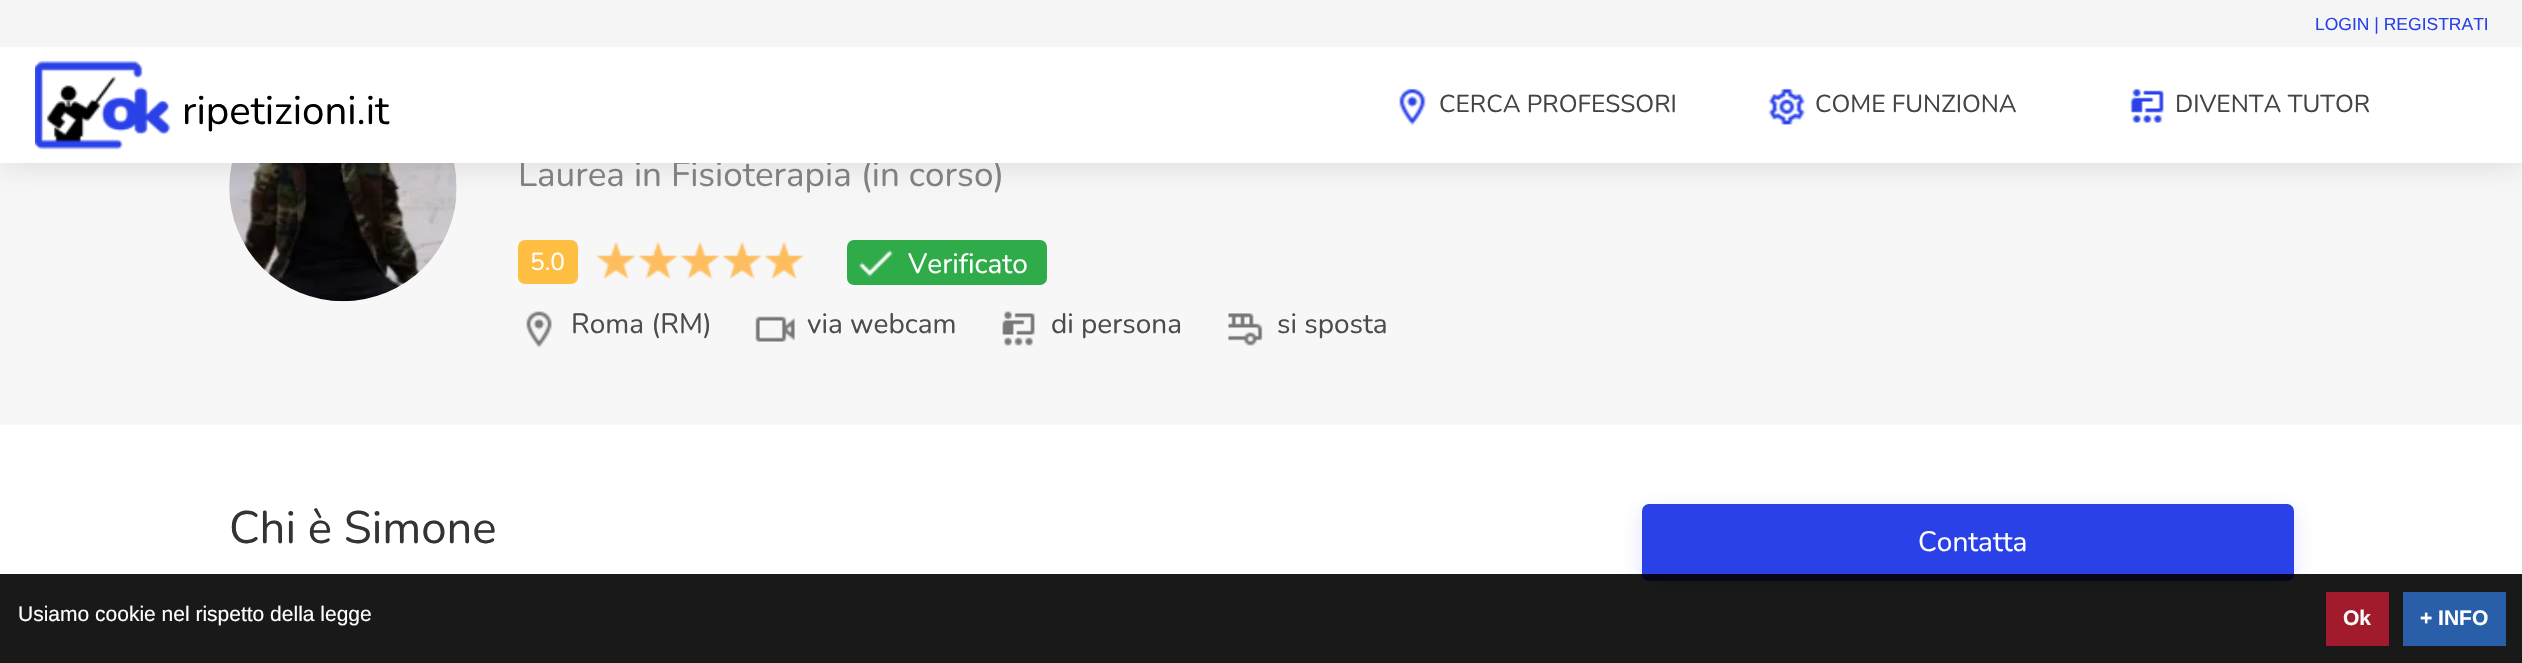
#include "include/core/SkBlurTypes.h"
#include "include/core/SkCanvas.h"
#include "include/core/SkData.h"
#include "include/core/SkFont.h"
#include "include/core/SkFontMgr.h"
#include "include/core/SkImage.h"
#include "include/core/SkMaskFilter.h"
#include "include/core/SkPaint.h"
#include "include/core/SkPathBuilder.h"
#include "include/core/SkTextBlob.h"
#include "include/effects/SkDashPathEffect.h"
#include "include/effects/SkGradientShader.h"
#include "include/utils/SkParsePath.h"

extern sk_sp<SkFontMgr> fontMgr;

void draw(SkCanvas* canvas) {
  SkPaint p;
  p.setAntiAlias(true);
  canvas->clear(SK_ColorWHITE);
  p.setColor(SkColorSetRGB(247, 247, 247));
  canvas->drawRect(SkRect::MakeLTRB(0, 163, 2522, 425), p);
  p.setColor(SK_ColorWHITE);
  canvas->drawRoundRect(SkRect::MakeLTRB(229, 74, 457, 301), 113.5f, 113.5f, p);
  canvas->drawImageRect(SkImages::DeferredFromEncodedData(SkData::MakeFromFileName("images/5.png")), SkRect::MakeLTRB(229, 163, 457, 302), SkSamplingOptions());
  p.setColor(SkColorSetARGB(31, 0, 0, 0));
  p.setMaskFilter(SkMaskFilter::MakeBlur(kNormal_SkBlurStyle, 16));
  canvas->drawRect(SkRect::MakeLTRB(0, 0, 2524, 163), p);
  p.setMaskFilter(nullptr);
  p.setColor(SkColorSetRGB(245, 245, 245));
  canvas->drawRect(SkRect::MakeLTRB(0, 0, 2522, 47), p);
  p.setColor(SkColorSetRGB(254, 190, 66));
  canvas->drawRoundRect(SkRect::MakeLTRB(518, 240, 578, 284), 7, 7, p);
  canvas->drawImageRect(SkImages::DeferredFromEncodedData(SkData::MakeFromFileName("images/6.png")), SkRect::MakeLTRB(596, 241, 636, 279), SkSamplingOptions());
  canvas->drawImageRect(SkImages::DeferredFromEncodedData(SkData::MakeFromFileName("images/7.png")), SkRect::MakeLTRB(638, 241, 678, 279), SkSamplingOptions());
  canvas->drawImageRect(SkImages::DeferredFromEncodedData(SkData::MakeFromFileName("images/6.png")), SkRect::MakeLTRB(680, 241, 720, 279), SkSamplingOptions());
  canvas->drawImageRect(SkImages::DeferredFromEncodedData(SkData::MakeFromFileName("images/7.png")), SkRect::MakeLTRB(722, 241, 762, 279), SkSamplingOptions());
  canvas->drawImageRect(SkImages::DeferredFromEncodedData(SkData::MakeFromFileName("images/6.png")), SkRect::MakeLTRB(764, 241, 804, 279), SkSamplingOptions());
  p.setColor(SkColorSetRGB(48, 171, 74));
  canvas->drawRoundRect(SkRect::MakeLTRB(847, 240, 1047, 285), 7, 7, p);
  canvas->drawImageRect(SkImages::DeferredFromEncodedData(SkData::MakeFromFileName("images/8.png")), SkRect::MakeLTRB(858, 250, 893, 277), SkSamplingOptions());
  canvas->drawImageRect(SkImages::DeferredFromEncodedData(SkData::MakeFromFileName("images/9.png")), SkRect::MakeLTRB(526, 311, 552, 348), SkSamplingOptions());
  canvas->drawImageRect(SkImages::DeferredFromEncodedData(SkData::MakeFromFileName("images/10.png")), SkRect::MakeLTRB(755, 316, 795, 342), SkSamplingOptions());
  canvas->drawImageRect(SkImages::DeferredFromEncodedData(SkData::MakeFromFileName("images/11.png")), SkRect::MakeLTRB(1002, 311, 1035, 346), SkSamplingOptions());
  canvas->drawImageRect(SkImages::DeferredFromEncodedData(SkData::MakeFromFileName("images/12.png")), SkRect::MakeLTRB(1228, 313, 1263, 346), SkSamplingOptions());
  p.setColor(SkColorSetARGB(38, 42, 65, 232));
  p.setMaskFilter(SkMaskFilter::MakeBlur(kNormal_SkBlurStyle, 10.5f));
  canvas->drawRoundRect(SkRect::MakeLTRB(1642, 511, 2294, 588), 7, 7, p);
  p.setMaskFilter(nullptr);
  p.setColor(SkColorSetRGB(42, 65, 232));
  canvas->drawRoundRect(SkRect::MakeLTRB(1642, 504, 2294, 581), 7, 7, p);
  p.setColor(SkColorSetARGB(230, 0, 0, 0));
  canvas->drawRect(SkRect::MakeLTRB(0, 574, 2522, 663), p);
  p.setColor(SkColorSetRGB(161, 27, 44));
  canvas->drawRect(SkRect::MakeLTRB(2326, 592, 2389, 646), p);
  p.setColor(SkColorSetRGB(40, 95, 168));
  canvas->drawRect(SkRect::MakeLTRB(2403, 592, 2506, 646), p);
  SkFont font1(fontMgr->matchFamilyStyle("Liberation Sans", SkFontStyle::Normal()), 17.5f);
  font1.setSubpixel(true);
  p.setColor(SkColorSetRGB(42, 65, 232));
  canvas->drawString("LOGIN | REGISTRATI", 2315, 30, font1, p);
  SkFont font2(fontMgr->matchFamilyStyle("Nunito", SkFontStyle::Normal()), 35);
  font2.setSubpixel(true);
  p.setColor(SkColorSetRGB(128, 128, 128));
  canvas->drawString("Laurea in Fisioterapia (in corso)", 518, 186, font2, p);
  p.setColor(SK_ColorWHITE);
  canvas->drawRect(SkRect::MakeLTRB(0, 47, 2522, 163), p);
  SkFont font3(fontMgr->matchFamilyStyle("Nunito", SkFontStyle::Normal()), 24.5f);
  font3.setSubpixel(true);
  p.setColor(SkColorSetRGB(68, 68, 68));
  canvas->drawString("DIVENTA TUTOR", 2175, 112, font3, p);
  canvas->drawImageRect(SkImages::DeferredFromEncodedData(SkData::MakeFromFileName("images/4.png")), SkRect::MakeLTRB(2130, 88, 2164, 123), SkSamplingOptions());
  canvas->drawString("COME FUNZIONA", 1815, 112, font3, p);
  canvas->drawImageRect(SkImages::DeferredFromEncodedData(SkData::MakeFromFileName("images/3.png")), SkRect::MakeLTRB(1768, 88, 1806, 125), SkSamplingOptions());
  canvas->drawString("CERCA PROFESSORI", 1439, 112, font3, p);
  canvas->drawImageRect(SkImages::DeferredFromEncodedData(SkData::MakeFromFileName("images/2.png")), SkRect::MakeLTRB(1399, 88, 1426, 125), SkSamplingOptions());
  canvas->drawImageRect(SkImages::DeferredFromEncodedData(SkData::MakeFromFileName("images/1.png")), SkRect::MakeLTRB(35, 60, 171, 150), SkSamplingOptions());
  SkFont font4(fontMgr->matchFamilyStyle("Nunito", SkFontStyle::Normal()), 40.25f);
  font4.setSubpixel(true);
  p.setColor(SK_ColorBLACK);
  canvas->drawString("ripetizioni.it", 182, 124, font4, p);
  p.setColor(SK_ColorWHITE);
  canvas->drawString("5.0", 530, 270, font3, p);
  SkFont font5(fontMgr->matchFamilyStyle("Nunito", SkFontStyle::Normal()), 28);
  font5.setSubpixel(true);
  canvas->drawString("Verificato", 908, 273, font5, p);
  p.setColor(SkColorSetRGB(76, 76, 76));
  canvas->drawString("Roma (RM)", 571, 333, font5, p);
  canvas->drawString("via webcam", 807, 333, font5, p);
  canvas->drawString("di persona", 1051, 333, font5, p);
  canvas->drawString("si sposta", 1277, 333, font5, p);
  SkFont font6(fontMgr->matchFamilyStyle("Nunito", SkFontStyle::Normal()), 45.5f);
  font6.setSubpixel(true);
  p.setColor(SkColorSetRGB(51, 51, 51));
  canvas->drawString("Chi è Simone", 229, 543, font6, p);
  p.setColor(SK_ColorWHITE);
  canvas->drawString("Contatta", 1918, 551, font5, p);
  SkFont font7(fontMgr->matchFamilyStyle("Liberation Sans", SkFontStyle::Normal()), 21);
  font7.setSubpixel(true);
  canvas->drawString("Usiamo cookie nel rispetto della legge", 18, 621, font7, p);
  SkFont font8(fontMgr->matchFamilyStyle("Liberation Sans", SkFontStyle::Bold()), 21);
  font8.setSubpixel(true);
  canvas->drawString("Ok", 2343, 625, font8, p);
  canvas->drawString("+ INFO", 2420, 625, font8, p);
}
